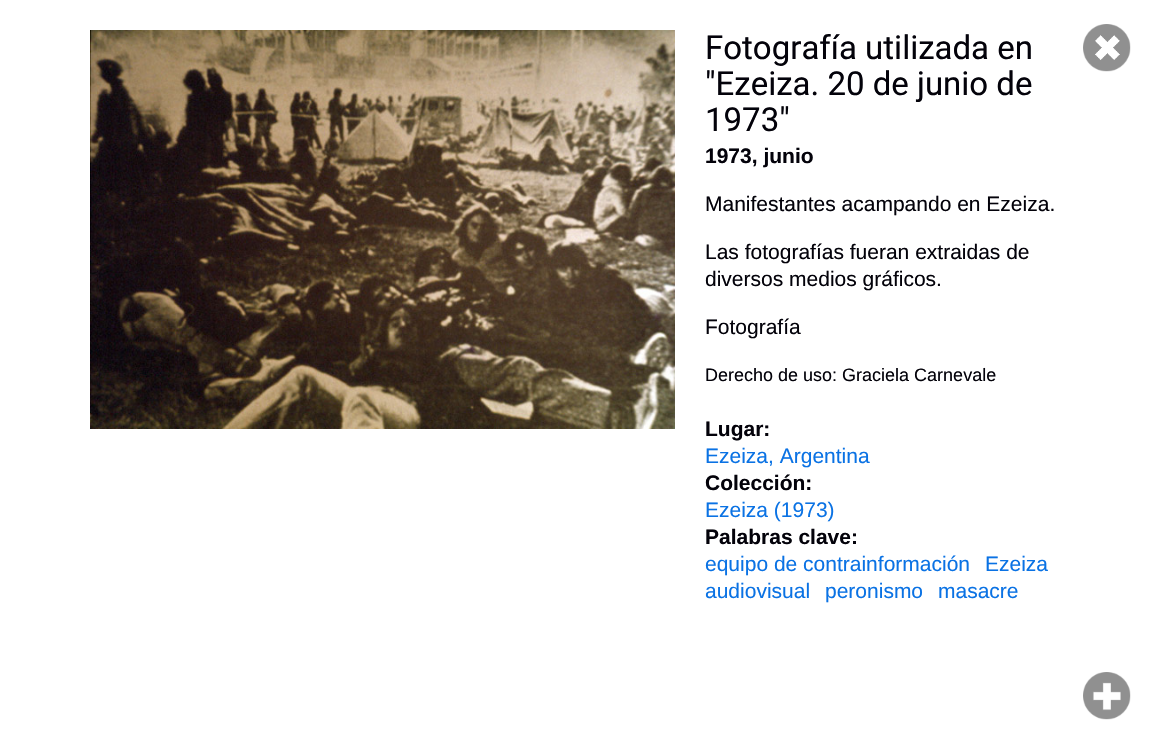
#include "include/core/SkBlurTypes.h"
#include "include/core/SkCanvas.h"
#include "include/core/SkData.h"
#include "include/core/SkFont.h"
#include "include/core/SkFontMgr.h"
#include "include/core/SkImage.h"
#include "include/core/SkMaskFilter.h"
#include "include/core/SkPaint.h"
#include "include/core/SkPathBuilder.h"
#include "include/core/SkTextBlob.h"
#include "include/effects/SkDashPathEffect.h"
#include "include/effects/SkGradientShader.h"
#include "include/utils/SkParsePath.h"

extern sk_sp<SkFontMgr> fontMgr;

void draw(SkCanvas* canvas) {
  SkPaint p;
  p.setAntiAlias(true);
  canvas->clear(SK_ColorWHITE);
  canvas->drawImageRect(SkImages::DeferredFromEncodedData(SkData::MakeFromFileName("images/1.png")), SkRect::MakeLTRB(90, 30, 675, 429), SkSamplingOptions());
  canvas->drawImageRect(SkImages::DeferredFromEncodedData(SkData::MakeFromFileName("images/2.png")), SkRect::MakeLTRB(1083, 24, 1131, 72), SkSamplingOptions());
  canvas->drawImageRect(SkImages::DeferredFromEncodedData(SkData::MakeFromFileName("images/3.png")), SkRect::MakeLTRB(1083, 672, 1131, 720), SkSamplingOptions());
  SkFont font1(fontMgr->matchFamilyStyle("Roboto", SkFontStyle::Normal()), 33);
  font1.setSubpixel(true);
  p.setColor(SkColorSetRGB(3, 2, 10));
  canvas->drawString("Fotografía utilizada en", 705, 59, font1, p);
  canvas->drawString("\"Ezeiza. 20 de junio de", 705, 95, font1, p);
  canvas->drawString("1973\"", 705, 131, font1, p);
  SkFont font2(fontMgr->matchFamilyStyle("Liberation Sans", SkFontStyle::Bold()), 21);
  font2.setSubpixel(true);
  canvas->drawString("1973, junio", 705, 163, font2, p);
  SkFont font3(fontMgr->matchFamilyStyle("Liberation Sans", SkFontStyle::Normal()), 21);
  font3.setSubpixel(true);
  canvas->drawString("Manifestantes acampando en Ezeiza.", 705, 211, font3, p);
  canvas->drawString("Las fotografías fueran extraidas de", 705, 259, font3, p);
  canvas->drawString("diversos medios gráficos.", 705, 286, font3, p);
  canvas->drawString("Fotografía", 705, 334, font3, p);
  SkFont font4(fontMgr->matchFamilyStyle("Liberation Sans", SkFontStyle::Normal()), 18);
  font4.setSubpixel(true);
  canvas->drawString("Derecho de uso: Graciela Carnevale", 705, 381, font4, p);
  canvas->drawString("Lugar:", 705, 436, font2, p);
  p.setColor(SkColorSetRGB(10, 114, 228));
  canvas->drawString("Ezeiza, Argentina", 705, 463, font3, p);
  p.setColor(SkColorSetRGB(3, 2, 10));
  canvas->drawString("Colección:", 705, 490, font2, p);
  p.setColor(SkColorSetRGB(10, 114, 228));
  canvas->drawString("Ezeiza (1973)", 705, 517, font3, p);
  p.setColor(SkColorSetRGB(3, 2, 10));
  canvas->drawString("Palabras clave:", 705, 544, font2, p);
  p.setColor(SkColorSetRGB(10, 114, 228));
  canvas->drawString("equipo de contrainformación", 705, 571, font3, p);
  canvas->drawString("Ezeiza", 985, 571, font3, p);
  canvas->drawString("audiovisual", 705, 598, font3, p);
  canvas->drawString("peronismo", 825, 598, font3, p);
  canvas->drawString("masacre", 938, 598, font3, p);
}
